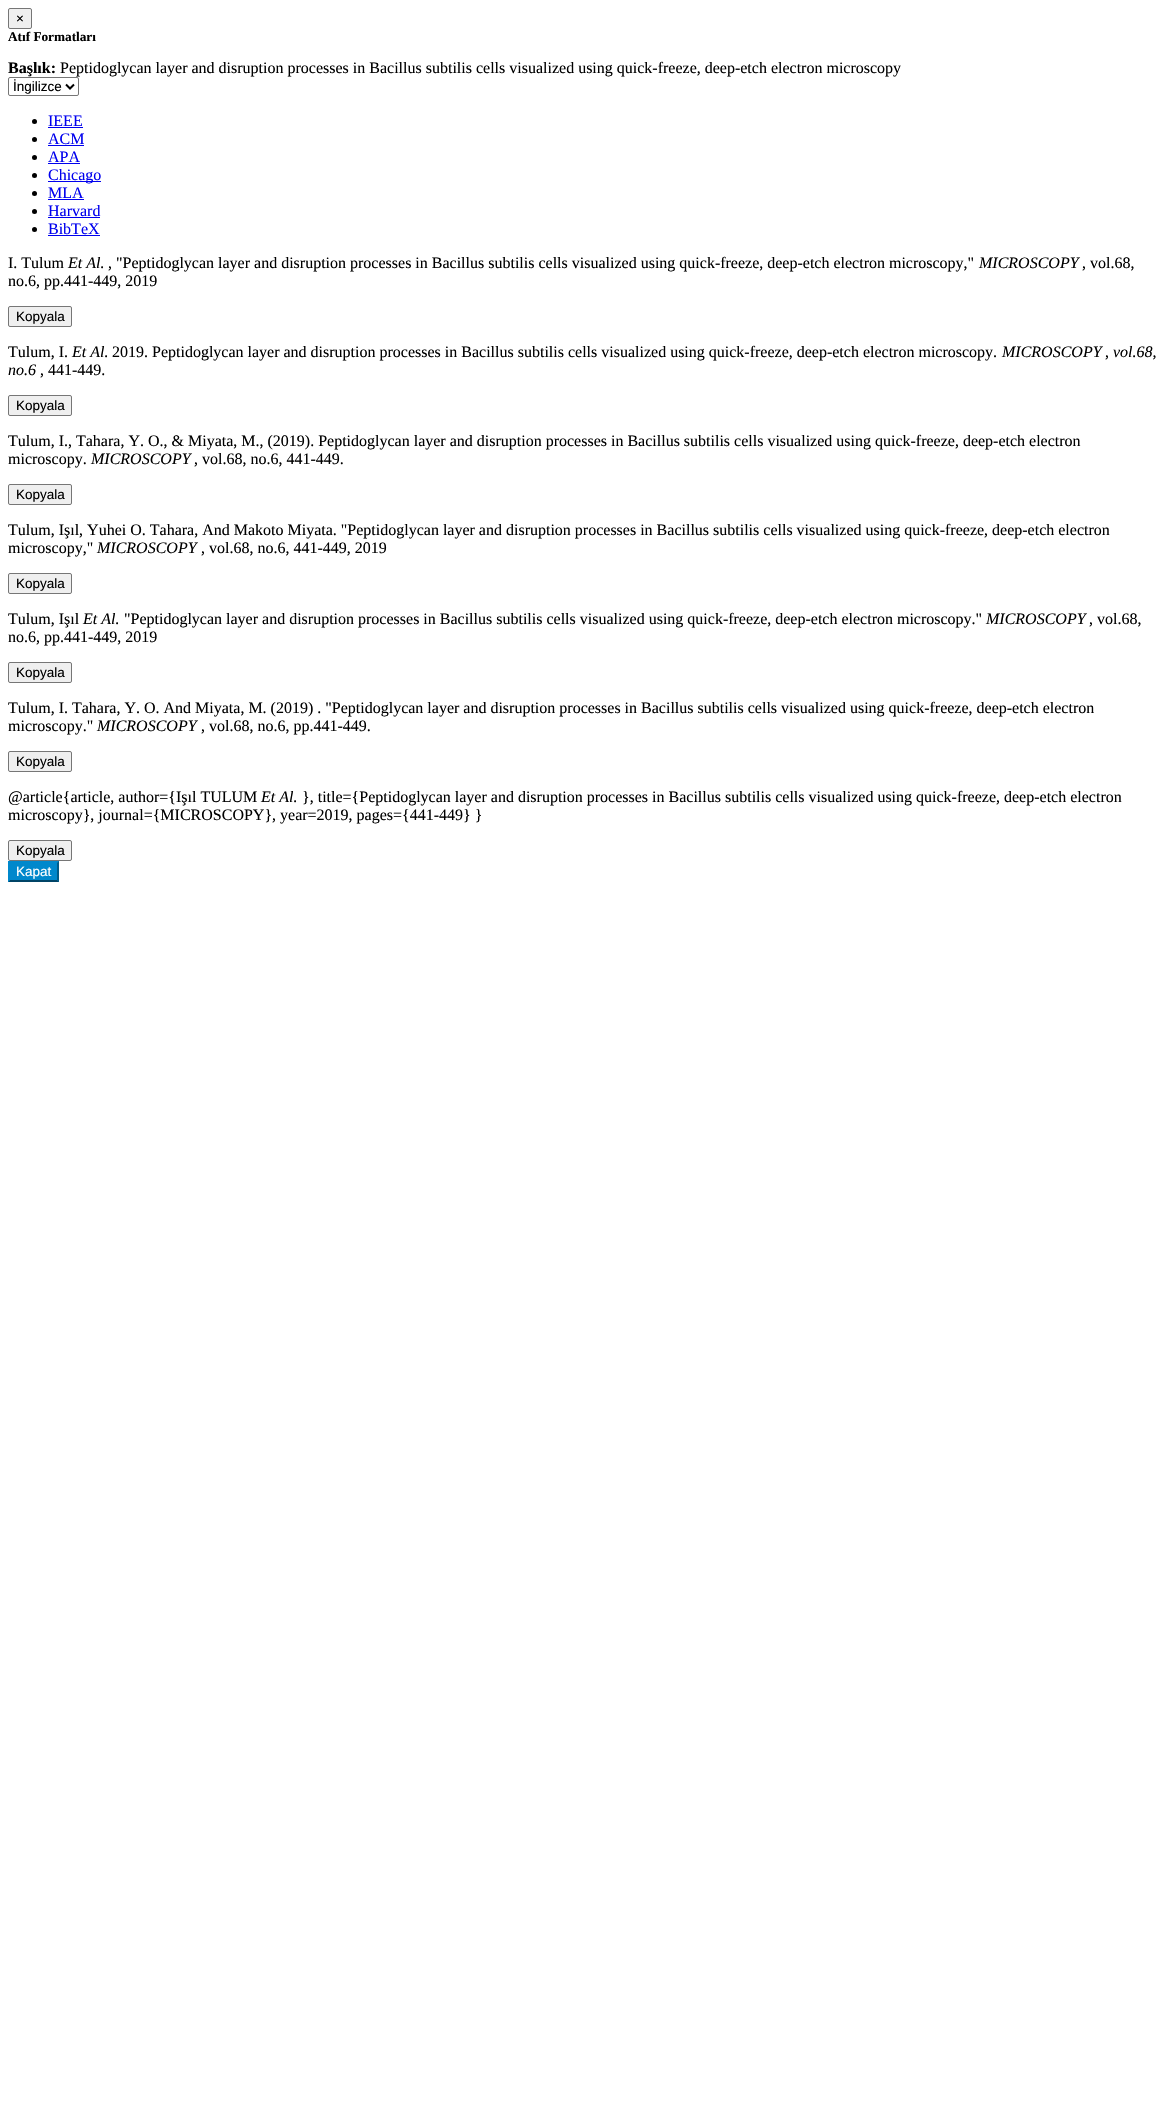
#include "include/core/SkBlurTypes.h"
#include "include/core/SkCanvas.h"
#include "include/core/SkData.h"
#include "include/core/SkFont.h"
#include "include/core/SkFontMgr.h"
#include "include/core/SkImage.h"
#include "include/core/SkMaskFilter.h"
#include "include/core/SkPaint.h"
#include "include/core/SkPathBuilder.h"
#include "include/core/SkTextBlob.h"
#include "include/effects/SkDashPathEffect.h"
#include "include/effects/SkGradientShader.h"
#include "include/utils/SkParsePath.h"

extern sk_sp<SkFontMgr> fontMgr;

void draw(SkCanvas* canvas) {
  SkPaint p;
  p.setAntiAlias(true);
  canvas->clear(SK_ColorWHITE);
  p.setColor(SkColorSetRGB(239, 239, 239));
  canvas->drawRoundRect(SkRect::MakeLTRB(8.5f, 8.5f, 31.5f, 28.5f), 1.5f, 1.5f, p);
  p.setStyle(SkPaint::kStroke_Style);
  p.setStrokeWidth(1);
  p.setColor(SkColorSetRGB(118, 118, 118));
  canvas->drawRoundRect(SkRect::MakeLTRB(8.5f, 8.5f, 31.5f, 28.5f), 1.5f, 1.5f, p);
  canvas->drawRoundRect(SkRect::MakeLTRB(8.5f, 77.5f, 78.5f, 95.5f), 1.5f, 1.5f, p);
  p.setStrokeWidth(2);
  p.setColor(SK_ColorBLACK);
  canvas->drawPath(SkPathBuilder().moveTo(66, 84.5f).lineTo(70, 88.5f).lineTo(74, 84.5f).detach(), p);
  p.setStyle(SkPaint::kFill_Style);
  canvas->drawCircle(34.5f, 121.5f, 2.5f, p);
  p.setColor(SkColorSetRGB(0, 0, 238));
  canvas->drawRect(SkRect::MakeLTRB(48, 127, 83, 128), p);
  p.setColor(SK_ColorBLACK);
  canvas->drawCircle(34.5f, 139.5f, 2.5f, p);
  p.setColor(SkColorSetRGB(0, 0, 238));
  canvas->drawRect(SkRect::MakeLTRB(48, 145, 84, 146), p);
  p.setColor(SK_ColorBLACK);
  canvas->drawCircle(34.5f, 157.5f, 2.5f, p);
  p.setColor(SkColorSetRGB(0, 0, 238));
  canvas->drawRect(SkRect::MakeLTRB(48, 163, 80, 164), p);
  p.setColor(SK_ColorBLACK);
  canvas->drawCircle(34.5f, 175.5f, 2.5f, p);
  p.setColor(SkColorSetRGB(0, 0, 238));
  canvas->drawRect(SkRect::MakeLTRB(48, 181, 101, 182), p);
  p.setColor(SK_ColorBLACK);
  canvas->drawCircle(34.5f, 193.5f, 2.5f, p);
  p.setColor(SkColorSetRGB(0, 0, 238));
  canvas->drawRect(SkRect::MakeLTRB(48, 199, 84, 200), p);
  p.setColor(SK_ColorBLACK);
  canvas->drawCircle(34.5f, 211.5f, 2.5f, p);
  p.setColor(SkColorSetRGB(0, 0, 238));
  canvas->drawRect(SkRect::MakeLTRB(48, 217, 100, 218), p);
  p.setColor(SK_ColorBLACK);
  canvas->drawCircle(34.5f, 229.5f, 2.5f, p);
  p.setColor(SkColorSetRGB(0, 0, 238));
  canvas->drawRect(SkRect::MakeLTRB(48, 235, 100, 236), p);
  p.setColor(SkColorSetRGB(239, 239, 239));
  canvas->drawRoundRect(SkRect::MakeLTRB(8.5f, 306.5f, 71.5f, 326.5f), 1.5f, 1.5f, p);
  p.setStyle(SkPaint::kStroke_Style);
  p.setStrokeWidth(1);
  p.setColor(SkColorSetRGB(118, 118, 118));
  canvas->drawRoundRect(SkRect::MakeLTRB(8.5f, 306.5f, 71.5f, 326.5f), 1.5f, 1.5f, p);
  p.setStyle(SkPaint::kFill_Style);
  p.setColor(SkColorSetRGB(239, 239, 239));
  canvas->drawRoundRect(SkRect::MakeLTRB(8.5f, 395.5f, 71.5f, 415.5f), 1.5f, 1.5f, p);
  p.setStyle(SkPaint::kStroke_Style);
  p.setColor(SkColorSetRGB(118, 118, 118));
  canvas->drawRoundRect(SkRect::MakeLTRB(8.5f, 395.5f, 71.5f, 415.5f), 1.5f, 1.5f, p);
  p.setStyle(SkPaint::kFill_Style);
  p.setColor(SkColorSetRGB(239, 239, 239));
  canvas->drawRoundRect(SkRect::MakeLTRB(8.5f, 484.5f, 71.5f, 504.5f), 1.5f, 1.5f, p);
  p.setStyle(SkPaint::kStroke_Style);
  p.setColor(SkColorSetRGB(118, 118, 118));
  canvas->drawRoundRect(SkRect::MakeLTRB(8.5f, 484.5f, 71.5f, 504.5f), 1.5f, 1.5f, p);
  p.setStyle(SkPaint::kFill_Style);
  p.setColor(SkColorSetRGB(239, 239, 239));
  canvas->drawRoundRect(SkRect::MakeLTRB(8.5f, 573.5f, 71.5f, 593.5f), 1.5f, 1.5f, p);
  p.setStyle(SkPaint::kStroke_Style);
  p.setColor(SkColorSetRGB(118, 118, 118));
  canvas->drawRoundRect(SkRect::MakeLTRB(8.5f, 573.5f, 71.5f, 593.5f), 1.5f, 1.5f, p);
  p.setStyle(SkPaint::kFill_Style);
  p.setColor(SkColorSetRGB(239, 239, 239));
  canvas->drawRoundRect(SkRect::MakeLTRB(8.5f, 662.5f, 71.5f, 682.5f), 1.5f, 1.5f, p);
  p.setStyle(SkPaint::kStroke_Style);
  p.setColor(SkColorSetRGB(118, 118, 118));
  canvas->drawRoundRect(SkRect::MakeLTRB(8.5f, 662.5f, 71.5f, 682.5f), 1.5f, 1.5f, p);
  p.setStyle(SkPaint::kFill_Style);
  p.setColor(SkColorSetRGB(239, 239, 239));
  canvas->drawRoundRect(SkRect::MakeLTRB(8.5f, 751.5f, 71.5f, 771.5f), 1.5f, 1.5f, p);
  p.setStyle(SkPaint::kStroke_Style);
  p.setColor(SkColorSetRGB(118, 118, 118));
  canvas->drawRoundRect(SkRect::MakeLTRB(8.5f, 751.5f, 71.5f, 771.5f), 1.5f, 1.5f, p);
  p.setStyle(SkPaint::kFill_Style);
  p.setColor(SkColorSetRGB(239, 239, 239));
  canvas->drawRoundRect(SkRect::MakeLTRB(8.5f, 840.5f, 71.5f, 860.5f), 1.5f, 1.5f, p);
  p.setStyle(SkPaint::kStroke_Style);
  p.setColor(SkColorSetRGB(118, 118, 118));
  canvas->drawRoundRect(SkRect::MakeLTRB(8.5f, 840.5f, 71.5f, 860.5f), 1.5f, 1.5f, p);
  p.setStyle(SkPaint::kFill_Style);
  p.setColor(SkColorSetRGB(0, 136, 204));
  canvas->drawRect(SkRect::MakeLTRB(8, 861, 59, 882), p);
  p.setColor(SkColorSetRGB(0, 91, 136));
  canvas->drawPath(SkPathBuilder().moveTo(59, 861).lineTo(59, 882).lineTo(57, 880).lineTo(57, 863).close().detach(), p);
  p.setColor(SkColorSetRGB(0, 68, 102));
  canvas->drawPath(SkPathBuilder().moveTo(59, 882).lineTo(8, 882).lineTo(10, 880).lineTo(57, 880).close().detach(), p);
  p.setColor(SkColorSetRGB(0, 136, 204));
  canvas->drawPath(SkPathBuilder().moveTo(8, 882).lineTo(8, 861).lineTo(10, 863).lineTo(10, 880).close().detach(), p);
  SkFont font1(fontMgr->matchFamilyStyle("Liberation Sans", SkFontStyle::Normal()), 13.5f);
  font1.setSubpixel(true);
  p.setColor(SK_ColorBLACK);
  canvas->drawString("×", 16, 23, font1, p);
  SkFont font2(fontMgr->matchFamilyStyle("Liberation Serif", SkFontStyle::Bold()), 13.25f);
  font2.setSubpixel(true);
  canvas->drawString("Atıf Formatları", 8, 41, font2, p);
  SkFont font3(fontMgr->matchFamilyStyle("Liberation Serif", SkFontStyle::Bold()), 16);
  font3.setSubpixel(true);
  canvas->drawString("Başlık:", 8, 73, font3, p);
  SkFont font4(fontMgr->matchFamilyStyle("Liberation Serif", SkFontStyle::Normal()), 16);
  font4.setSubpixel(true);
  canvas->drawString("Peptidoglycan layer and disruption processes in Bacillus subtilis cells visualized using quick-freeze, deep-etch electron microscopy", 60, 73, font4, p);
  canvas->drawString("İngilizce", 13, 91, font1, p);
  p.setColor(SkColorSetRGB(0, 0, 238));
  canvas->drawString("IEEE", 48, 126, font4, p);
  canvas->drawString("ACM", 48, 144, font4, p);
  canvas->drawString("APA", 48, 162, font4, p);
  canvas->drawString("Chicago", 48, 180, font4, p);
  canvas->drawString("MLA", 48, 198, font4, p);
  canvas->drawString("Harvard", 48, 216, font4, p);
  canvas->drawString("BibTeX", 48, 234, font4, p);
  p.setColor(SK_ColorBLACK);
  canvas->drawString("I. Tulum", 8, 268, font4, p);
  SkFont font5(fontMgr->matchFamilyStyle("Liberation Serif", SkFontStyle::Italic()), 16);
  font5.setSubpixel(true);
  canvas->drawString("Et Al.", 68, 268, font5, p);
  canvas->drawString(", \"Peptidoglycan layer and disruption processes in Bacillus subtilis cells visualized using quick-freeze, deep-etch electron microscopy,\"", 108, 268, font4, p);
  canvas->drawString("MICROSCOPY", 979, 268, font5, p);
  canvas->drawString(", vol.68,", 1082, 268, font4, p);
  canvas->drawString("no.6, pp.441-449, 2019", 8, 286, font4, p);
  canvas->drawString("Kopyala", 16, 321, font1, p);
  canvas->drawString("Tulum, I.", 8, 357, font4, p);
  canvas->drawString("Et Al.", 72, 357, font5, p);
  canvas->drawString("2019. Peptidoglycan layer and disruption processes in Bacillus subtilis cells visualized using quick-freeze, deep-etch electron microscopy.", 112, 357, font4, p);
  canvas->drawString("MICROSCOPY", 1002, 357, font5, p);
  canvas->drawString(",", 1105, 357, font4, p);
  canvas->drawString("vol.68,", 1113, 357, font5, p);
  canvas->drawString("no.6", 8, 375, font5, p);
  canvas->drawString(", 441-449.", 40, 375, font4, p);
  canvas->drawString("Kopyala", 16, 410, font1, p);
  canvas->drawString("Tulum, I., Tahara, Y. O., & Miyata, M., (2019). Peptidoglycan layer and disruption processes in Bacillus subtilis cells visualized using quick-freeze, deep-etch electron", 8, 446, font4, p);
  canvas->drawString("microscopy.", 8, 464, font4, p);
  canvas->drawString("MICROSCOPY", 91, 464, font5, p);
  canvas->drawString(", vol.68, no.6, 441-449.", 194, 464, font4, p);
  canvas->drawString("Kopyala", 16, 499, font1, p);
  canvas->drawString("Tulum, Işıl, Yuhei O. Tahara, And Makoto Miyata. \"Peptidoglycan layer and disruption processes in Bacillus subtilis cells visualized using quick-freeze, deep-etch electron", 8, 535, font4, p);
  canvas->drawString("microscopy,\"", 8, 553, font4, p);
  canvas->drawString("MICROSCOPY", 97, 553, font5, p);
  canvas->drawString(", vol.68, no.6, 441-449, 2019", 201, 553, font4, p);
  canvas->drawString("Kopyala", 16, 588, font1, p);
  canvas->drawString("Tulum, Işıl", 8, 624, font4, p);
  canvas->drawString("Et Al.", 83, 624, font5, p);
  canvas->drawString("\"Peptidoglycan layer and disruption processes in Bacillus subtilis cells visualized using quick-freeze, deep-etch electron microscopy.\"", 124, 624, font4, p);
  canvas->drawString("MICROSCOPY", 986, 624, font5, p);
  canvas->drawString(", vol.68,", 1089, 624, font4, p);
  canvas->drawString("no.6, pp.441-449, 2019", 8, 642, font4, p);
  canvas->drawString("Kopyala", 16, 677, font1, p);
  canvas->drawString("Tulum, I. Tahara, Y. O. And Miyata, M. (2019) . \"Peptidoglycan layer and disruption processes in Bacillus subtilis cells visualized using quick-freeze, deep-etch electron", 8, 713, font4, p);
  canvas->drawString("microscopy.\"", 8, 731, font4, p);
  canvas->drawString("MICROSCOPY", 97, 731, font5, p);
  canvas->drawString(", vol.68, no.6, pp.441-449.", 201, 731, font4, p);
  canvas->drawString("Kopyala", 16, 766, font1, p);
  canvas->drawString("@article{article, author={Işıl TULUM", 8, 802, font4, p);
  canvas->drawString("Et Al.", 261, 802, font5, p);
  canvas->drawString("}, title={Peptidoglycan layer and disruption processes in Bacillus subtilis cells visualized using quick-freeze, deep-etch electron", 302, 802, font4, p);
  canvas->drawString("microscopy}, journal={MICROSCOPY}, year=2019, pages={441-449} }", 8, 820, font4, p);
  canvas->drawString("Kopyala", 16, 855, font1, p);
  p.setColor(SK_ColorWHITE);
  canvas->drawString("Kapat", 16, 876, font1, p);
}
